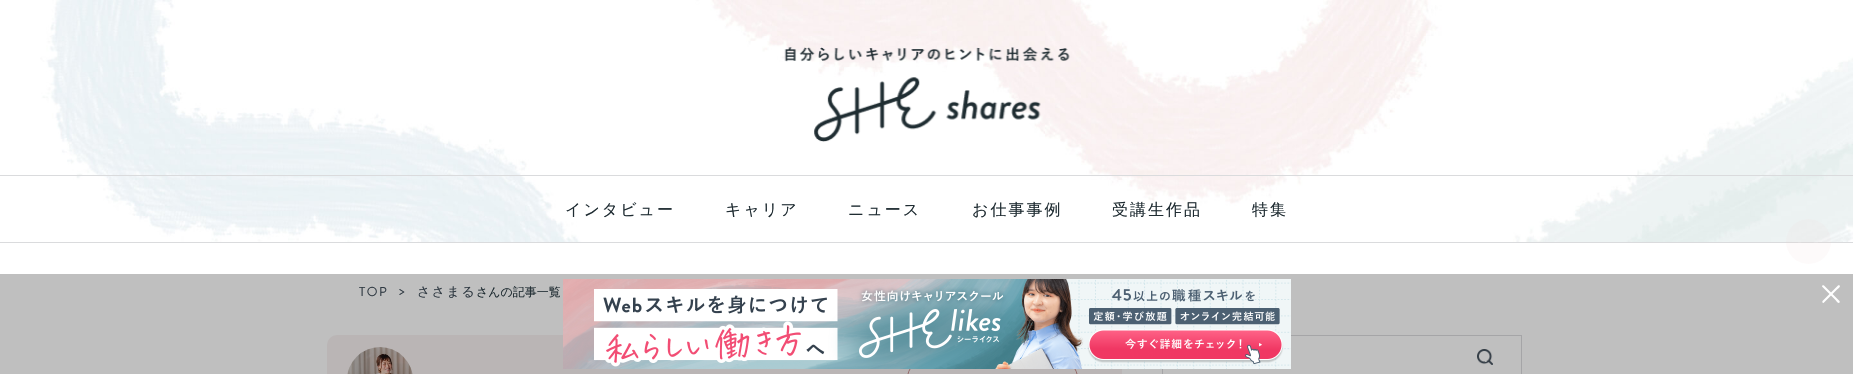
#include "include/core/SkBlurTypes.h"
#include "include/core/SkCanvas.h"
#include "include/core/SkData.h"
#include "include/core/SkFont.h"
#include "include/core/SkFontMgr.h"
#include "include/core/SkImage.h"
#include "include/core/SkMaskFilter.h"
#include "include/core/SkPaint.h"
#include "include/core/SkPathBuilder.h"
#include "include/core/SkTextBlob.h"
#include "include/effects/SkDashPathEffect.h"
#include "include/effects/SkGradientShader.h"
#include "include/utils/SkParsePath.h"

extern sk_sp<SkFontMgr> fontMgr;

void draw(SkCanvas* canvas) {
  SkPaint p;
  p.setAntiAlias(true);
  auto spacedText = [&](const char* s, float x, float y, const SkFont& font, const SkPaint& ink, float letter, float word) {
    std::vector<SkGlyphID> glyphs(font.countText(s, strlen(s), SkTextEncoding::kUTF8));
    std::vector<float> xs(glyphs.size());
    font.textToGlyphs(s, strlen(s), SkTextEncoding::kUTF8, glyphs);
    font.getXPos(glyphs, xs, x);
    float extra = 0;
    for (size_t i = 0; i < glyphs.size(); i++) {
      xs[i] += extra;
      extra += letter + word * (glyphs[i] == font.unicharToGlyph(' '));
    }
    canvas->drawTextBlob(SkTextBlob::MakeFromPosHGlyphs(glyphs, xs, y, font), 0, 0, ink);
  };
  canvas->clear(SK_ColorWHITE);
  p.setColor(SkColorSetRGB(191, 191, 191));
  canvas->drawRect(SkRect::MakeLTRB(0, 274, 1853, 374), p);
  canvas->drawImageRect(SkImages::DeferredFromEncodedData(SkData::MakeFromFileName("images/1.png")), SkRect::MakeLTRB(40, 0, 1853, 242), SkSamplingOptions());
  canvas->drawImageRect(SkImages::DeferredFromEncodedData(SkData::MakeFromFileName("images/2.png")), SkRect::MakeLTRB(784, 47, 1070, 142), SkSamplingOptions());
  p.setColor(SkColorSetRGB(218, 219, 221));
  canvas->drawRect(SkRect::MakeLTRB(0, 175, 1853, 176), p);
  canvas->drawRect(SkRect::MakeLTRB(0, 242, 1853, 243), p);
  p.setColor(SkColorSetRGB(186, 181, 181));
  canvas->drawRoundRect(SkRect::MakeLTRB(327, 335, 1122, 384), 10, 10, p);
  p.setStyle(SkPaint::kStroke_Style);
  p.setStrokeWidth(1);
  p.setColor(SkColorSetRGB(149, 104, 104));
  canvas->drawRoundRect(SkRect::MakeLTRB(907.5f, 360.5f, 1077.5f, 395.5f), 20, 20, p);
  p.setColor(SkColorSetRGB(165, 165, 167));
  canvas->drawRect(SkRect::MakeLTRB(1162.5f, 335.5f, 1521.5f, 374.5f), p);
  canvas->drawImageRect(SkImages::DeferredFromEncodedData(SkData::MakeFromFileName("images/3.png")), SkRect::MakeLTRB(563, 279, 1291, 369), SkSamplingOptions());
  p.setStyle(SkPaint::kFill_Style);
  p.setColor(SK_ColorWHITE);
  canvas->drawPath(SkPathBuilder().moveTo(1822.5f, 301).lineTo(1838, 285.5f).cubicTo(1838.5f, 285, 1840, 285.5f, 1840, 286).cubicTo(1840, 287.5f, 1838, 288.5f, 1837, 289.5f).lineTo(1823.5f, 303).cubicTo(1822.5f, 303, 1822, 302, 1822.5f, 301).close().detach(), p);
  canvas->drawPath(SkPathBuilder().moveTo(1824, 285.5f).lineTo(1839.5f, 301).cubicTo(1840, 301.5f, 1839.5f, 303, 1839, 303).cubicTo(1837.5f, 303, 1836.5f, 301, 1835.5f, 300).lineTo(1822, 286.5f).cubicTo(1822, 285.5f, 1823, 285, 1824, 285.5f).close().detach(), p);
  canvas->drawImageRect(SkImages::DeferredFromEncodedData(SkData::MakeFromFileName("images/4.png")), SkRect::MakeLTRB(347, 347, 413, 374), SkSamplingOptions());
  canvas->drawImageRect(SkImages::DeferredFromEncodedData(SkData::MakeFromFileName("images/5.png")), SkRect::MakeLTRB(1477, 349, 1493, 365), SkSamplingOptions());
  p.setColor(SkColorSetARGB(28, 239, 214, 213));
  canvas->drawCircle(1808.5f, 241.5f, 22.5f, p);
  canvas->drawImageRect(SkImages::DeferredFromEncodedData(SkData::MakeFromFileName("images/6.png")), SkRect::MakeLTRB(1798, 242, 1818, 243), SkSamplingOptions());
  SkFont font1(fontMgr->matchFamilyStyle("WenQuanYi Zen Hei", SkFontStyle(500, SkFontStyle::kNormal_Width, SkFontStyle::kUpright_Slant)), 16);
  font1.setSubpixel(true);
  p.setColor(SkColorSetRGB(31, 44, 50));
  spacedText("インタビュー", 565, 215, font1, p, 2, 0);
  spacedText("キャリア", 725, 215, font1, p, 2, 0);
  spacedText("ニュース", 848, 215, font1, p, 2, 0);
  spacedText("お仕事事例", 972, 215, font1, p, 2, 0);
  spacedText("受講生作品", 1112, 215, font1, p, 2, 0);
  spacedText("特集", 1252, 215, font1, p, 2, 0);
  SkFont font2(fontMgr->matchFamilyStyle("Brandon Grotesque", SkFontStyle::Normal()), 13);
  font2.setSubpixel(true);
  p.setColor(SkColorSetRGB(48, 58, 67));
  spacedText("TOP", 359, 296, font2, p, 1.5f, 0);
  spacedText(">", 399, 295, font2, p, 1.5f, 0);
  SkFont font3(fontMgr->matchFamilyStyle("WenQuanYi Zen Hei", SkFontStyle(500, SkFontStyle::kNormal_Width, SkFontStyle::kUpright_Slant)), 13);
  font3.setSubpixel(true);
  spacedText("ささまる", 417, 296, font3, p, 1.5f, 0);
  SkFont font4(fontMgr->matchFamilyStyle("WenQuanYi Zen Hei", SkFontStyle(500, SkFontStyle::kNormal_Width, SkFontStyle::kUpright_Slant)), 12);
  font4.setSubpixel(true);
  p.setColor(SkColorSetRGB(31, 44, 50));
  canvas->drawString("さんの記事一覧", 476, 296, font4, p);
  SkFont font5(fontMgr->matchFamilyStyle("Liberation Sans", SkFontStyle::Normal()), 13);
  font5.setSubpixel(true);
  p.setColor(SkColorSetRGB(191, 191, 191));
  canvas->drawString(".", 1484, 362, font5, p);
}
